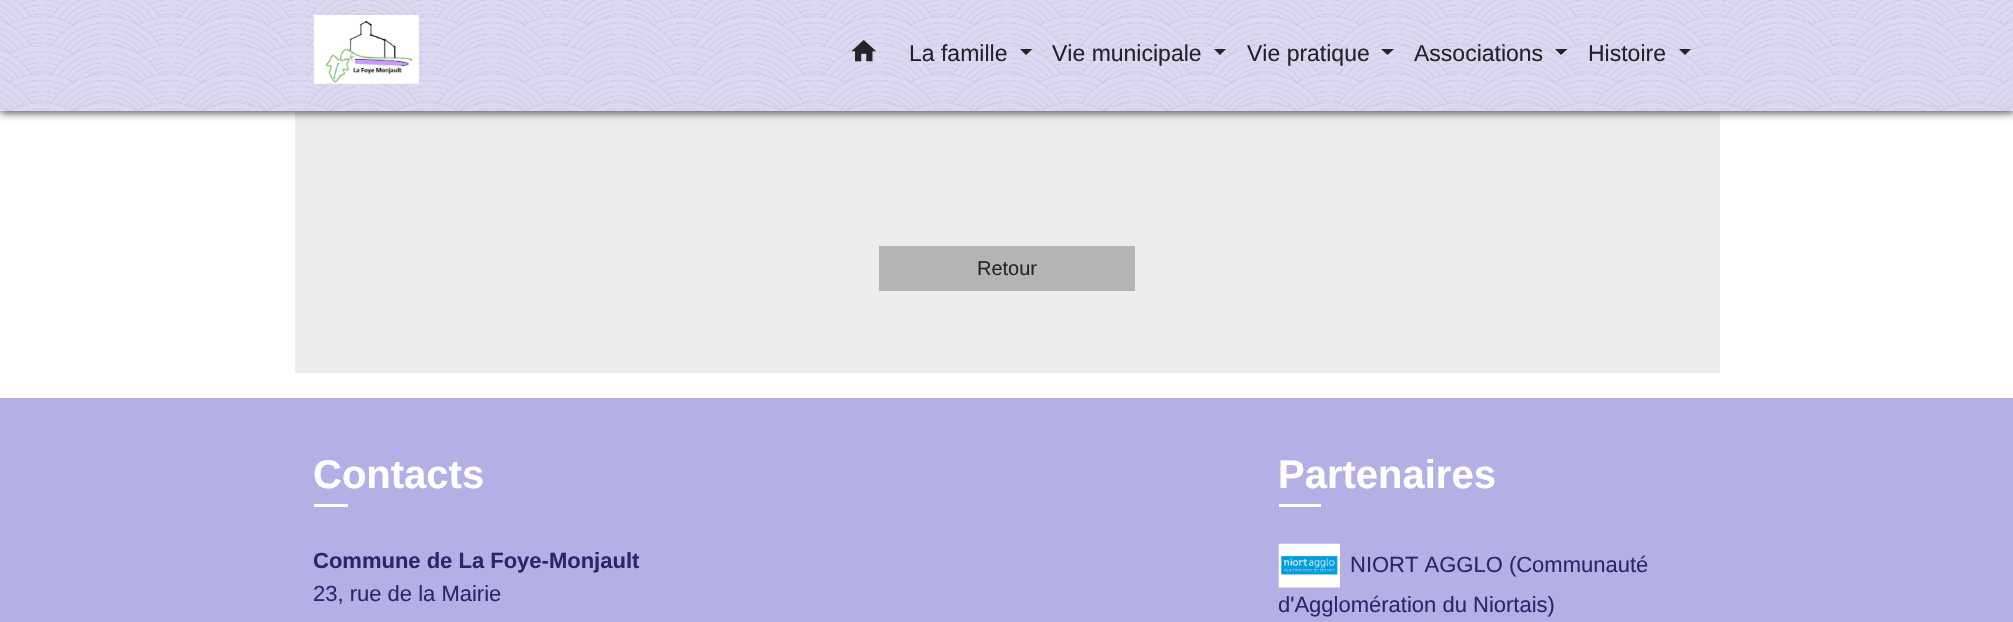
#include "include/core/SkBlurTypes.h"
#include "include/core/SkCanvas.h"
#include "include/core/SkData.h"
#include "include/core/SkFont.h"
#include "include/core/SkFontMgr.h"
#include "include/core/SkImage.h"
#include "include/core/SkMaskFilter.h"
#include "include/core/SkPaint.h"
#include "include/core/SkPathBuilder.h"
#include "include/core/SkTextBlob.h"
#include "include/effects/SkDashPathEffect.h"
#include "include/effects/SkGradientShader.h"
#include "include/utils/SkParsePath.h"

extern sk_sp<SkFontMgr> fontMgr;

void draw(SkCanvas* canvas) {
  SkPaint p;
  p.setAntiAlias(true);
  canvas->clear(SK_ColorWHITE);
  p.setColor(SkColorSetRGB(236, 236, 236));
  canvas->drawRect(SkRect::MakeLTRB(295, 111, 1720, 373), p);
  p.setColor(SkColorSetRGB(83, 83, 83));
  p.setMaskFilter(SkMaskFilter::MakeBlur(kNormal_SkBlurStyle, 4));
  canvas->drawRect(SkRect::MakeLTRB(0, 1, 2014, 113), p);
  p.setMaskFilter(nullptr);
  p.setColor(SkColorSetRGB(222, 216, 243));
  canvas->drawRect(SkRect::MakeLTRB(0, 0, 2013, 111), p);
  canvas->drawImageRect(SkImages::DeferredFromEncodedData(SkData::MakeFromFileName("images/1.png")), SkRect::MakeLTRB(0, 0, 2013, 111), SkSamplingOptions());
  canvas->drawImageRect(SkImages::DeferredFromEncodedData(SkData::MakeFromFileName("images/2.png")), SkRect::MakeLTRB(313, 15, 419, 84), SkSamplingOptions());
  canvas->drawImageRect(SkImages::DeferredFromEncodedData(SkData::MakeFromFileName("images/3.png")), SkRect::MakeLTRB(851, 40, 877, 62), SkSamplingOptions());
  p.setColor(SkColorSetRGB(33, 37, 41));
  canvas->drawPath(SkPathBuilder().moveTo(1020, 49).lineTo(1032.5f, 49).lineTo(1026, 55).close().detach(), p);
  canvas->drawPath(SkPathBuilder().moveTo(1214, 49).lineTo(1226, 49).lineTo(1220, 55).close().detach(), p);
  canvas->drawPath(SkPathBuilder().moveTo(1381, 49).lineTo(1394, 49).lineTo(1387.5f, 55).close().detach(), p);
  canvas->drawPath(SkPathBuilder().moveTo(1555, 49).lineTo(1567.5f, 49).lineTo(1561, 55).close().detach(), p);
  canvas->drawPath(SkPathBuilder().moveTo(1679, 49).lineTo(1691, 49).lineTo(1685, 55).close().detach(), p);
  p.setColor(SkColorSetRGB(180, 180, 180));
  canvas->drawRect(SkRect::MakeLTRB(879, 246, 1135, 291), p);
  p.setColor(SkColorSetRGB(180, 175, 229));
  canvas->drawRect(SkRect::MakeLTRB(0, 398, 2013, 622), p);
  p.setColor(SK_ColorWHITE);
  canvas->drawRect(SkRect::MakeLTRB(314, 504, 348, 507), p);
  canvas->drawRect(SkRect::MakeLTRB(1279, 504, 1321, 507), p);
  canvas->drawImageRect(SkImages::DeferredFromEncodedData(SkData::MakeFromFileName("images/4.png")), SkRect::MakeLTRB(1278, 543, 1340, 588), SkSamplingOptions());
  SkFont font1(fontMgr->matchFamilyStyle("Liberation Sans", SkFontStyle::Normal()), 23);
  font1.setSubpixel(true);
  p.setColor(SkColorSetRGB(33, 37, 41));
  canvas->drawString("La famille", 909, 61, font1, p);
  canvas->drawString("Vie municipale", 1052, 61, font1, p);
  canvas->drawString("Vie pratique", 1247, 61, font1, p);
  canvas->drawString("Associations", 1414, 61, font1, p);
  canvas->drawString("Histoire", 1588, 61, font1, p);
  SkFont font2(fontMgr->matchFamilyStyle("Liberation Sans", SkFontStyle::Normal()), 20);
  font2.setSubpixel(true);
  canvas->drawString("Retour", 977, 275, font2, p);
  SkFont font3(fontMgr->matchFamilyStyle("Liberation Sans", SkFontStyle::Bold()), 40);
  font3.setSubpixel(true);
  p.setColor(SK_ColorWHITE);
  canvas->drawString("Contacts", 313, 488, font3, p);
  SkFont font4(fontMgr->matchFamilyStyle("Liberation Sans", SkFontStyle::Bold()), 22);
  font4.setSubpixel(true);
  p.setColor(SkColorSetRGB(43, 37, 106));
  canvas->drawString("Commune de La Foye-Monjault", 313, 568, font4, p);
  SkFont font5(fontMgr->matchFamilyStyle("Liberation Sans", SkFontStyle::Normal()), 22);
  font5.setSubpixel(true);
  canvas->drawString("23, rue de la Mairie", 313, 601, font5, p);
  p.setColor(SK_ColorWHITE);
  canvas->drawString("Partenaires", 1278, 488, font3, p);
  p.setColor(SkColorSetRGB(43, 37, 106));
  canvas->drawString("NIORT AGGLO (Communauté", 1350, 572, font5, p);
  canvas->drawString("d'Agglomération du Niortais)", 1278, 612, font5, p);
}
